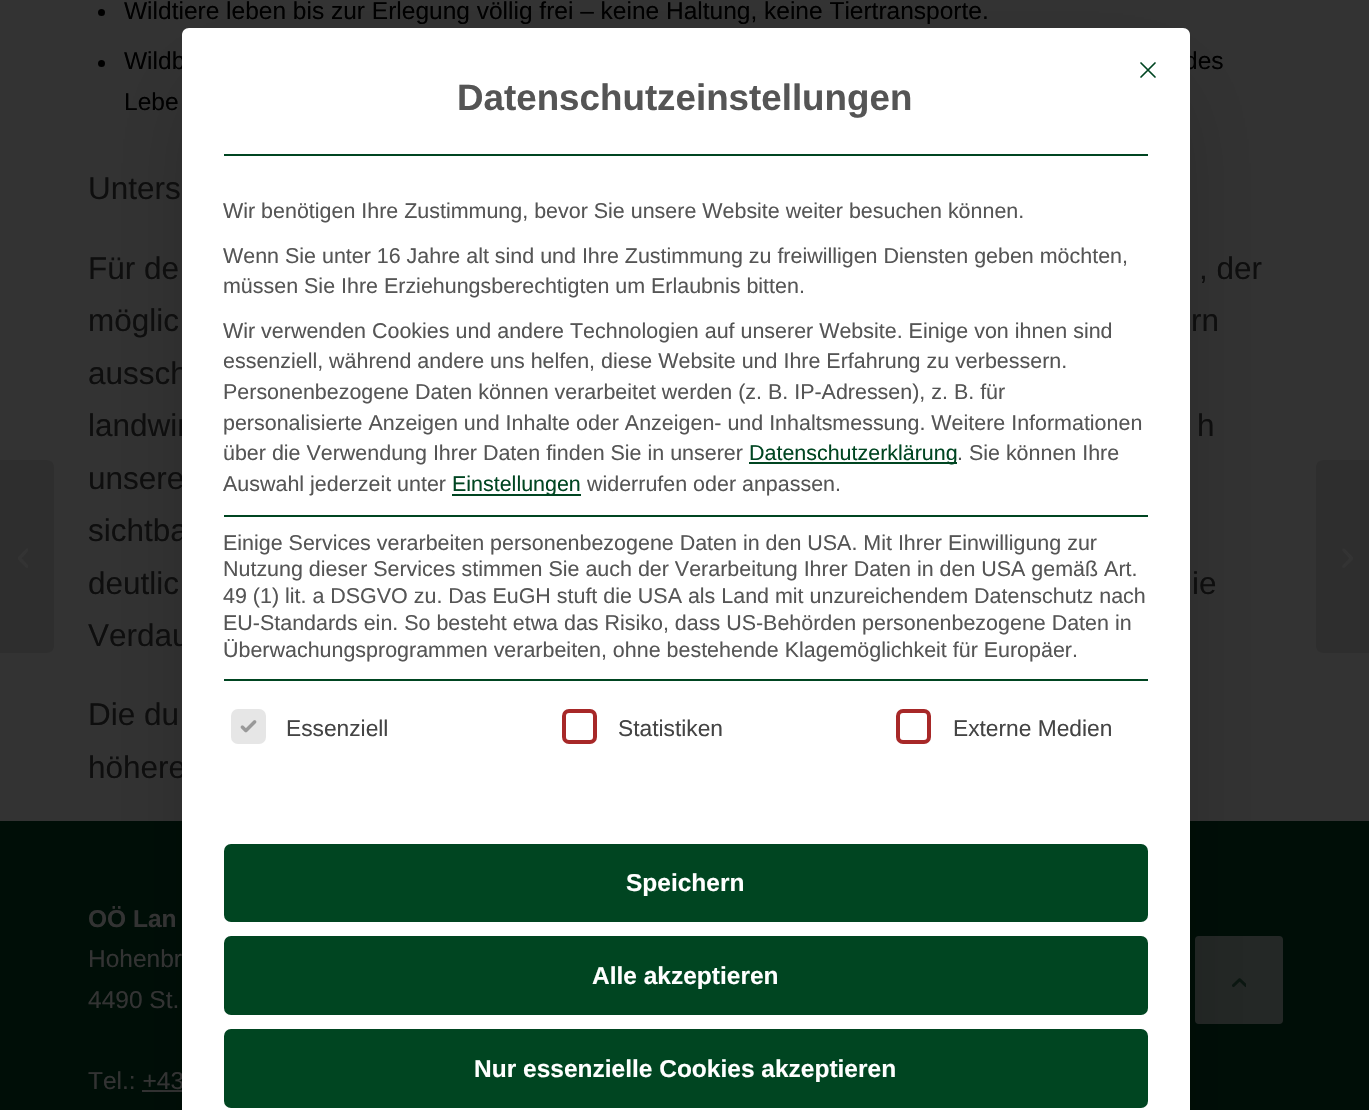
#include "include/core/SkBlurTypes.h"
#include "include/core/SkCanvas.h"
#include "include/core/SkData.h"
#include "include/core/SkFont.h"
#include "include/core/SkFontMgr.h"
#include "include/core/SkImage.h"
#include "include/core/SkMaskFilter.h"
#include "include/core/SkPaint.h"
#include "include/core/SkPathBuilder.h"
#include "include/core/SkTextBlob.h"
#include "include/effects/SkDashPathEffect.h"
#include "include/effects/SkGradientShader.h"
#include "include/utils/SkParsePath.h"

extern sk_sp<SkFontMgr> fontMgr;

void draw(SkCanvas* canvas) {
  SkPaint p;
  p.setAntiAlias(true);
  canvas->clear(SkColorSetRGB(51, 51, 51));
  p.setColor(SkColorSetRGB(46, 46, 46));
  canvas->drawPath(SkPathBuilder().moveTo(0, 460).lineTo(47, 460).cubicTo(51, 460, 54, 463, 54, 467).lineTo(54, 646).cubicTo(54, 650, 51, 653, 47, 653).lineTo(0, 653).close().detach(), p);
  canvas->drawImageRect(SkImages::DeferredFromEncodedData(SkData::MakeFromFileName("images/1.png")), SkRect::MakeLTRB(18, 548, 28, 568), SkSamplingOptions());
  p.setColor(SK_ColorBLACK);
  canvas->drawCircle(101.5f, 12.5f, 3.5f, p);
  canvas->drawCircle(101.5f, 63.5f, 3.5f, p);
  p.setColor(SkColorSetRGB(0, 14, 7));
  canvas->drawRect(SkRect::MakeLTRB(0, 821, 1369, 1110), p);
  p.setColor(SkColorSetRGB(51, 51, 51));
  canvas->drawRect(SkRect::MakeLTRB(142, 1090, 182, 1092), p);
  p.setColor(SkColorSetRGB(46, 46, 46));
  canvas->drawPath(SkPathBuilder().moveTo(1323, 460).lineTo(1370, 460).lineTo(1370, 653).lineTo(1323, 653).cubicTo(1319, 653, 1316, 650, 1316, 646).lineTo(1316, 467).cubicTo(1316, 463, 1319, 460, 1323, 460).close().detach(), p);
  canvas->drawImageRect(SkImages::DeferredFromEncodedData(SkData::MakeFromFileName("images/2.png")), SkRect::MakeLTRB(1342, 548, 1353, 568), SkSamplingOptions());
  p.setColor(SkColorSetRGB(36, 40, 38));
  canvas->drawRoundRect(SkRect::MakeLTRB(1196, 937, 1282, 1023), 3, 3, p);
  p.setStyle(SkPaint::kStroke_Style);
  p.setStrokeWidth(2);
  canvas->drawRoundRect(SkRect::MakeLTRB(1196, 937, 1282, 1023), 3, 3, p);
  canvas->drawImageRect(SkImages::DeferredFromEncodedData(SkData::MakeFromFileName("images/4.png")), SkRect::MakeLTRB(1232, 978, 1246, 988), SkSamplingOptions());
  p.setStyle(SkPaint::kFill_Style);
  p.setColor(SkColorSetARGB(64, 0, 0, 0));
  p.setMaskFilter(SkMaskFilter::MakeBlur(kNormal_SkBlurStyle, 44));
  canvas->drawRect(SkRect::MakeLTRB(203, 93, 1169, 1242), p);
  p.setMaskFilter(nullptr);
  SkFont font1(fontMgr->matchFamilyStyle("Liberation Sans", SkFontStyle::Normal()), 24.5f);
  font1.setSubpixel(true);
  p.setColor(SK_ColorBLACK);
  canvas->drawString("Wildtiere leben bis zur Erlegung völlig frei – keine Haltung, keine Tiertransporte.", 124, 19, font1, p);
  canvas->drawString("Wildb", 124, 69, font1, p);
  canvas->drawString("des", 1184, 69, font1, p);
  canvas->drawString("Lebe", 124, 110, font1, p);
  SkFont font2(fontMgr->matchFamilyStyle("Liberation Sans", SkFontStyle::Normal()), 31.5f);
  font2.setSubpixel(true);
  p.setColor(SkColorSetRGB(14, 14, 14));
  canvas->drawString("Unters", 88, 199, font2, p);
  canvas->drawString("Für de", 88, 279, font2, p);
  canvas->drawString(", der", 1199, 279, font2, p);
  canvas->drawString("möglic", 88, 331, font2, p);
  canvas->drawString("rn", 1191, 331, font2, p);
  canvas->drawString("aussch", 88, 384, font2, p);
  canvas->drawString("landwir", 88, 436, font2, p);
  canvas->drawString("h", 1197, 436, font2, p);
  canvas->drawString("unsere", 88, 489, font2, p);
  canvas->drawString("sichtba", 88, 541, font2, p);
  canvas->drawString("deutlic", 88, 594, font2, p);
  canvas->drawString("ie", 1192, 594, font2, p);
  canvas->drawString("Verdau", 88, 646, font2, p);
  canvas->drawString("Die du", 88, 725, font2, p);
  canvas->drawString("höhere", 88, 778, font2, p);
  SkFont font3(fontMgr->matchFamilyStyle("Liberation Sans", SkFontStyle::Bold()), 24.5f);
  font3.setSubpixel(true);
  p.setColor(SkColorSetRGB(51, 51, 51));
  canvas->drawString("OÖ Lan", 88, 927, font3, p);
  canvas->drawString("Hohenbr", 88, 967, font1, p);
  canvas->drawString("4490 St.", 88, 1008, font1, p);
  canvas->drawString("Tel.: +43", 88, 1089, font1, p);
  p.setColor(SK_ColorWHITE);
  canvas->drawPath(SkPathBuilder().moveTo(189, 28).lineTo(1183, 28).cubicTo(1187, 28, 1190, 31, 1190, 35).lineTo(1190, 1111).lineTo(182, 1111).lineTo(182, 35).cubicTo(182, 31, 185, 28, 189, 28).close().detach(), p);
  p.setStyle(SkPaint::kStroke_Style);
  p.setStrokeWidth(1.7f);
  p.setStrokeCap(SkPaint::kRound_Cap);
  p.setStrokeJoin(SkPaint::kRound_Join);
  p.setColor(SkColorSetRGB(0, 69, 33));
  canvas->drawPath(SkPathBuilder().moveTo(1141, 77).lineTo(1155, 63).moveTo(1141, 63).lineTo(1155, 77).detach(), p);
  p.setStyle(SkPaint::kFill_Style);
  canvas->drawRect(SkRect::MakeLTRB(224, 154, 1148, 156), p);
  SkFont font4(fontMgr->matchFamilyStyle("Liberation Sans", SkFontStyle::Bold()), 36.75f);
  font4.setSubpixel(true);
  p.setColor(SkColorSetRGB(85, 85, 85));
  canvas->drawString("Datenschutzeinstellungen", 457, 110, font4, p);
  SkFont font5(fontMgr->matchFamilyStyle("Liberation Sans", SkFontStyle::Normal()), 21.45f);
  font5.setSubpixel(true);
  canvas->drawString("Wir benötigen Ihre Zustimmung, bevor Sie unsere Website weiter besuchen können.", 223, 218, font5, p);
  canvas->drawString("Wenn Sie unter 16 Jahre alt sind und Ihre Zustimmung zu freiwilligen Diensten geben möchten,", 223, 263, font5, p);
  canvas->drawString("müssen Sie Ihre Erziehungsberechtigten um Erlaubnis bitten.", 223, 293, font5, p);
  canvas->drawString("Wir verwenden Cookies und andere Technologien auf unserer Website. Einige von ihnen sind", 223, 338, font5, p);
  canvas->drawString("essenziell, während andere uns helfen, diese Website und Ihre Erfahrung zu verbessern.", 223, 368, font5, p);
  canvas->drawString("Personenbezogene Daten können verarbeitet werden (z. B. IP-Adressen), z. B. für", 223, 399, font5, p);
  canvas->drawString("personalisierte Anzeigen und Inhalte oder Anzeigen- und Inhaltsmessung. Weitere Informationen", 223, 430, font5, p);
  canvas->drawString("über die Verwendung Ihrer Daten finden Sie in unserer", 223, 460, font5, p);
  p.setColor(SkColorSetRGB(0, 69, 33));
  canvas->drawRect(SkRect::MakeLTRB(749, 462, 957, 464), p);
  canvas->drawString("Datenschutzerklärung", 749, 460, font5, p);
  p.setColor(SkColorSetRGB(85, 85, 85));
  canvas->drawString(". Sie können Ihre", 957, 460, font5, p);
  canvas->drawString("Auswahl jederzeit unter", 223, 491, font5, p);
  p.setColor(SkColorSetRGB(0, 69, 33));
  canvas->drawRect(SkRect::MakeLTRB(452, 494, 581, 496), p);
  canvas->drawString("Einstellungen", 452, 491, font5, p);
  p.setColor(SkColorSetRGB(85, 85, 85));
  canvas->drawString("widerrufen oder anpassen.", 587, 491, font5, p);
  p.setColor(SkColorSetRGB(0, 69, 33));
  canvas->drawRect(SkRect::MakeLTRB(224, 515, 1148, 517), p);
  canvas->drawRect(SkRect::MakeLTRB(224, 679, 1148, 681), p);
  p.setColor(SkColorSetRGB(85, 85, 85));
  canvas->drawString("Einige Services verarbeiten personenbezogene Daten in den USA. Mit Ihrer Einwilligung zur", 223, 550, font5, p);
  canvas->drawString("Nutzung dieser Services stimmen Sie auch der Verarbeitung Ihrer Daten in den USA gemäß Art.", 223, 576, font5, p);
  canvas->drawString("49 (1) lit. a DSGVO zu. Das EuGH stuft die USA als Land mit unzureichendem Datenschutz nach", 223, 603, font5, p);
  canvas->drawString("EU-Standards ein. So besteht etwa das Risiko, dass US-Behörden personenbezogene Daten in", 223, 630, font5, p);
  canvas->drawString("Überwachungsprogrammen verarbeiten, ohne bestehende Klagemöglichkeit für Europäer.", 223, 657, font5, p);
  p.setColor(SkColorSetRGB(230, 230, 230));
  canvas->drawRoundRect(SkRect::MakeLTRB(233, 711, 264, 742), 5, 5, p);
  p.setStyle(SkPaint::kStroke_Style);
  p.setStrokeWidth(4);
  p.setStrokeCap(SkPaint::kButt_Cap);
  p.setStrokeJoin(SkPaint::kMiter_Join);
  canvas->drawRoundRect(SkRect::MakeLTRB(233, 711, 264, 742), 5, 5, p);
  canvas->drawImageRect(SkImages::DeferredFromEncodedData(SkData::MakeFromFileName("images/3.png")), SkRect::MakeLTRB(240, 720, 257, 733), SkSamplingOptions());
  SkFont font6(fontMgr->matchFamilyStyle("Liberation Sans", SkFontStyle::Normal()), 22.75f);
  font6.setSubpixel(true);
  p.setStyle(SkPaint::kFill_Style);
  p.setColor(SkColorSetRGB(68, 68, 68));
  canvas->drawString("Essenziell", 286, 736, font6, p);
  p.setStyle(SkPaint::kStroke_Style);
  p.setColor(SkColorSetRGB(167, 40, 40));
  canvas->drawRoundRect(SkRect::MakeLTRB(564, 711, 595, 742), 5, 5, p);
  p.setStyle(SkPaint::kFill_Style);
  p.setColor(SkColorSetRGB(68, 68, 68));
  canvas->drawString("Statistiken", 618, 736, font6, p);
  p.setStyle(SkPaint::kStroke_Style);
  p.setColor(SkColorSetRGB(167, 40, 40));
  canvas->drawRoundRect(SkRect::MakeLTRB(898, 711, 929, 742), 5, 5, p);
  p.setStyle(SkPaint::kFill_Style);
  p.setColor(SkColorSetRGB(68, 68, 68));
  canvas->drawString("Externe Medien", 953, 736, font6, p);
  p.setColor(SkColorSetRGB(0, 69, 33));
  canvas->drawRoundRect(SkRect::MakeLTRB(224, 844, 1148, 922), 7, 7, p);
  p.setColor(SK_ColorWHITE);
  canvas->drawString("Speichern", 626, 891, font3, p);
  p.setColor(SkColorSetRGB(0, 69, 33));
  canvas->drawRoundRect(SkRect::MakeLTRB(224, 936, 1148, 1015), 7, 7, p);
  p.setColor(SK_ColorWHITE);
  canvas->drawString("Alle akzeptieren", 592, 984, font3, p);
  p.setColor(SkColorSetRGB(0, 69, 33));
  canvas->drawRoundRect(SkRect::MakeLTRB(224, 1029, 1148, 1108), 7, 7, p);
  p.setColor(SK_ColorWHITE);
  canvas->drawString("Nur essenzielle Cookies akzeptieren", 474, 1077, font3, p);
}
